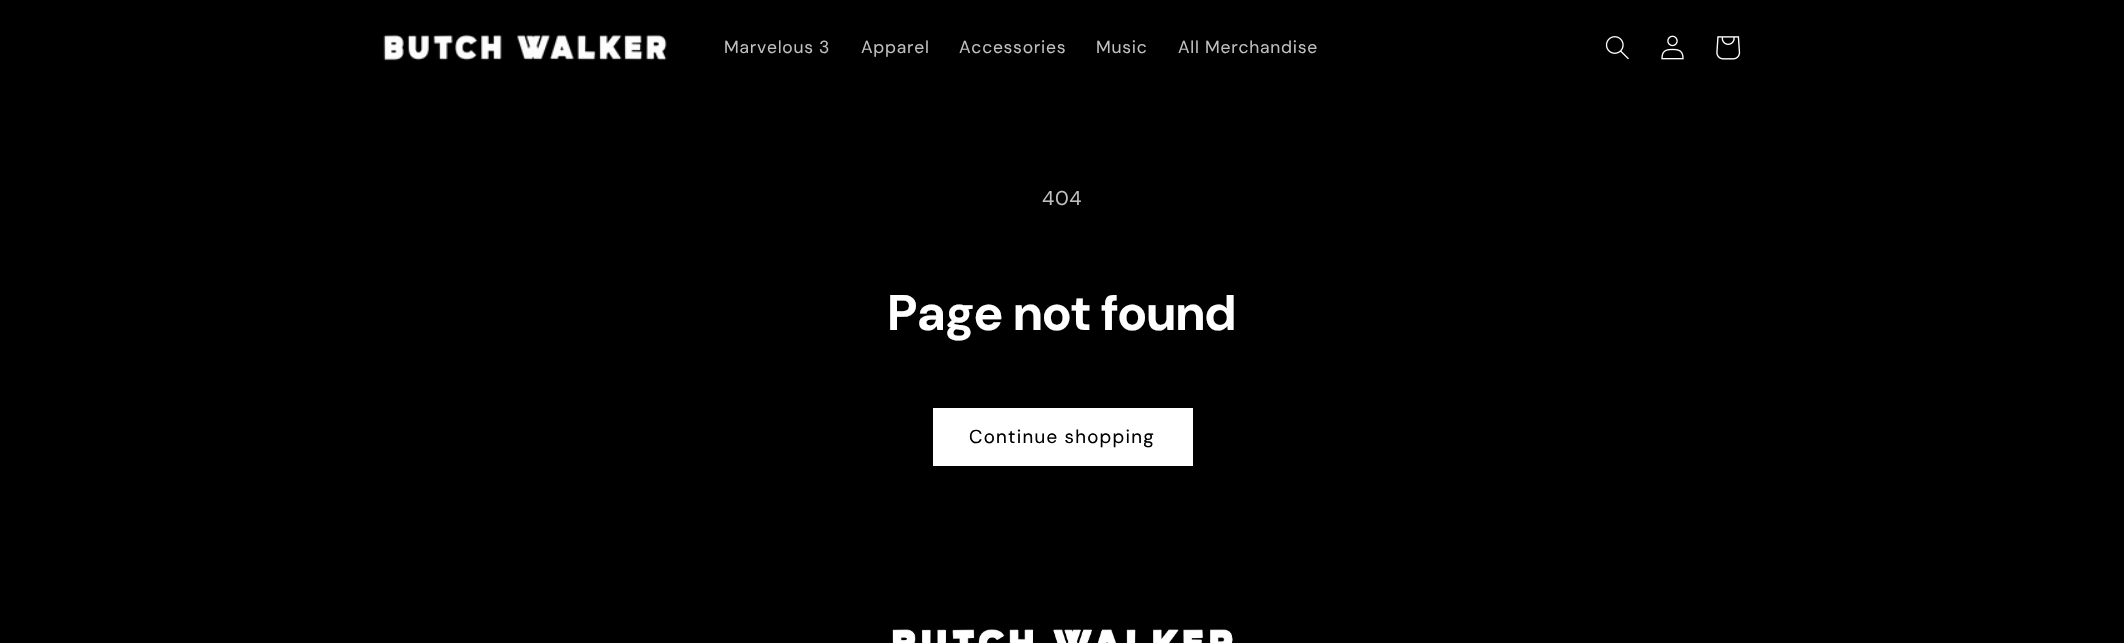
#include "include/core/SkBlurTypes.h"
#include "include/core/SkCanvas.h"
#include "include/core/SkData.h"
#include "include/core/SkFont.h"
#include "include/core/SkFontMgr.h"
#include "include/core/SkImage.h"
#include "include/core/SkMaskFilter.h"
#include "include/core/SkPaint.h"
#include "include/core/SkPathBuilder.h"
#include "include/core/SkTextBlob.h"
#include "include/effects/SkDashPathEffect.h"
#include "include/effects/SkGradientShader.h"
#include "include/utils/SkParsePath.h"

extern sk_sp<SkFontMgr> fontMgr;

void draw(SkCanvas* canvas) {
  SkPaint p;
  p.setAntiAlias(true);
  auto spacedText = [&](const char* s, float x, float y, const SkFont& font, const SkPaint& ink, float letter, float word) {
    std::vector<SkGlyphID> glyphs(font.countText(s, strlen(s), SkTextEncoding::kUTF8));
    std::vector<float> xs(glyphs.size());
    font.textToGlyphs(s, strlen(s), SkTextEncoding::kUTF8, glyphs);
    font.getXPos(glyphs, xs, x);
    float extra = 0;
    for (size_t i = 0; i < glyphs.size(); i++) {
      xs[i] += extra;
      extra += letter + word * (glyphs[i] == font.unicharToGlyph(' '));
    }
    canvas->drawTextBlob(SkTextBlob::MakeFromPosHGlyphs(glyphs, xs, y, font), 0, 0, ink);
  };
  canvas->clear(SK_ColorBLACK);
  canvas->drawImageRect(SkImages::DeferredFromEncodedData(SkData::MakeFromFileName("images/1.png")), SkRect::MakeLTRB(383, 34, 667, 61), SkSamplingOptions());
  canvas->drawImageRect(SkImages::DeferredFromEncodedData(SkData::MakeFromFileName("images/2.png")), SkRect::MakeLTRB(1605, 36, 1629, 60), SkSamplingOptions());
  canvas->drawImageRect(SkImages::DeferredFromEncodedData(SkData::MakeFromFileName("images/3.png")), SkRect::MakeLTRB(1661, 35, 1684, 60), SkSamplingOptions());
  canvas->drawImageRect(SkImages::DeferredFromEncodedData(SkData::MakeFromFileName("images/4.png")), SkRect::MakeLTRB(1716, 36, 1741, 60), SkSamplingOptions());
  p.setColor(SK_ColorWHITE);
  canvas->drawRect(SkRect::MakeLTRB(933, 408, 1193, 466), p);
  canvas->drawImageRect(SkImages::DeferredFromEncodedData(SkData::MakeFromFileName("images/5.png")), SkRect::MakeLTRB(892, 629, 1233, 643), SkSamplingOptions());
  SkFont font1(fontMgr->matchFamilyStyle("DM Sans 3", SkFontStyle::Normal()), 17.5f);
  font1.setSubpixel(true);
  p.setColor(SkColorSetRGB(191, 191, 191));
  spacedText("Marvelous 3", 724, 53, font1, p, 0.75f, 0);
  spacedText("Apparel", 861, 53, font1, p, 0.75f, 0);
  spacedText("Accessories", 959, 53, font1, p, 0.75f, 0);
  spacedText("Music", 1096, 53, font1, p, 0.75f, 0);
  spacedText("All Merchandise", 1178, 53, font1, p, 0.75f, 0);
  SkFont font2(fontMgr->matchFamilyStyle("DM Sans", SkFontStyle::Normal()), 20);
  font2.setSubpixel(true);
  spacedText("404", 1042, 205, font2, p, 0.75f, 0);
  SkFont font3(fontMgr->matchFamilyStyle("DM Sans", SkFontStyle::Bold()), 50);
  font3.setSubpixel(true);
  p.setColor(SK_ColorWHITE);
  spacedText("Page not found", 888, 330, font3, p, 0.75f, 0);
  SkFont font4(fontMgr->matchFamilyStyle("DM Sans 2", SkFontStyle::Normal()), 18.75f);
  font4.setSubpixel(true);
  p.setColor(SK_ColorBLACK);
  spacedText("Continue shopping", 969, 443, font4, p, 1.25f, 0);
}
